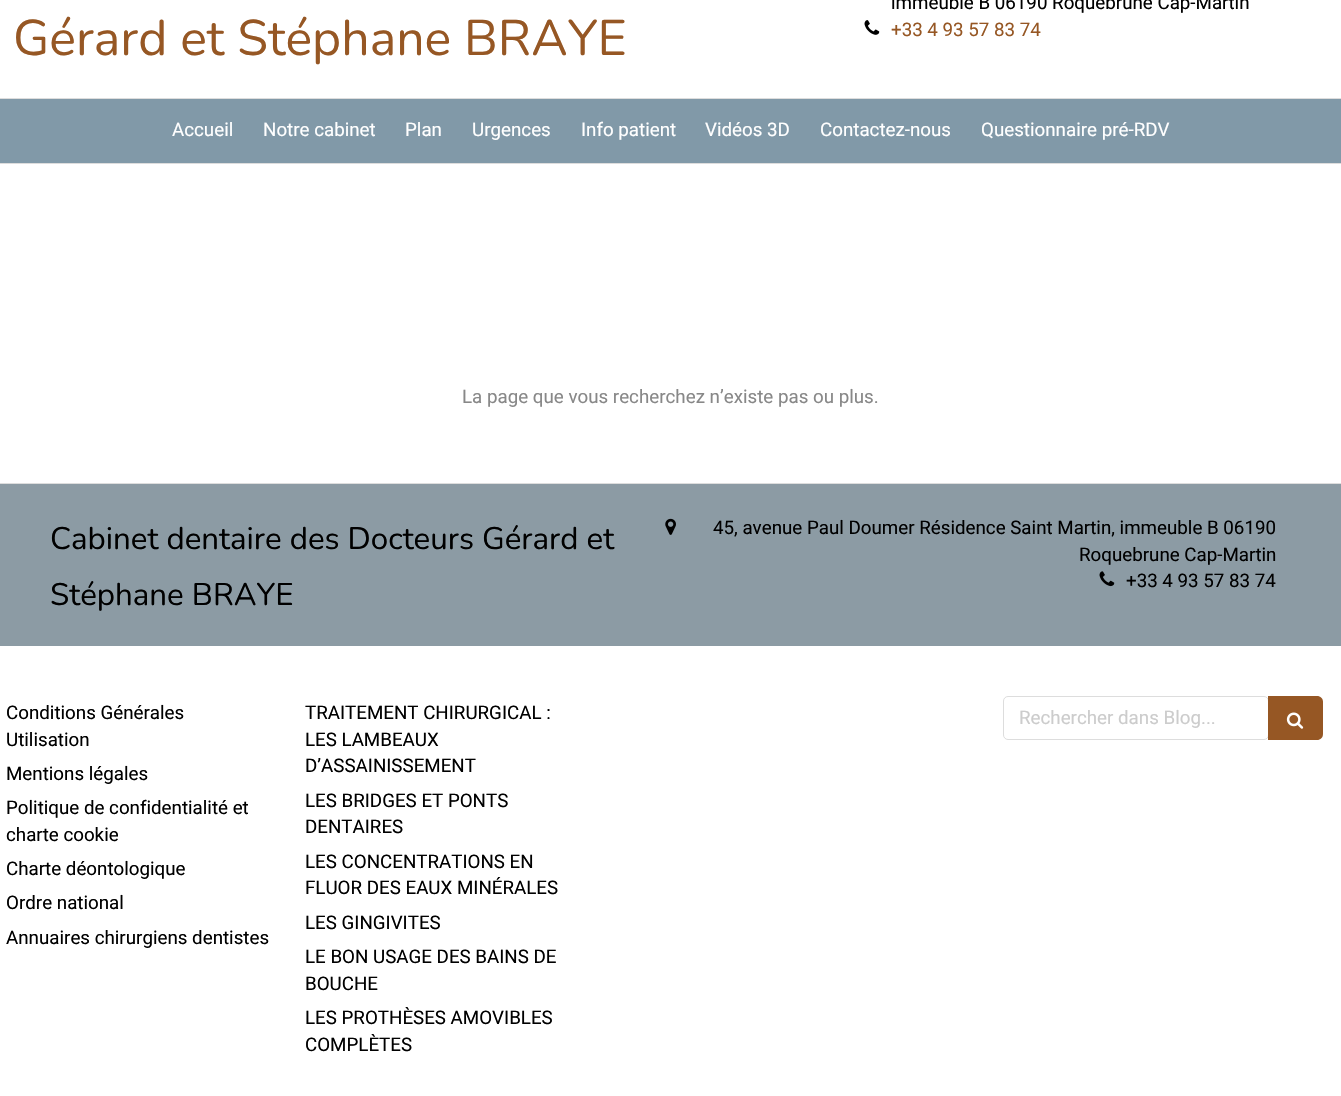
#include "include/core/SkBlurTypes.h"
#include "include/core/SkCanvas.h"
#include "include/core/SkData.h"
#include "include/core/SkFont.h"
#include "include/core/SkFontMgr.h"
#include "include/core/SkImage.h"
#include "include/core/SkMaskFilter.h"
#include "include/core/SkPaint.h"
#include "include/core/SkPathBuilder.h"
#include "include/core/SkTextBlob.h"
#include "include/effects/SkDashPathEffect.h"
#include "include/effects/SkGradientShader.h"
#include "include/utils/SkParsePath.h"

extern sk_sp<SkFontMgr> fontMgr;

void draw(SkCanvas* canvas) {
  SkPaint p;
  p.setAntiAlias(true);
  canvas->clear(SK_ColorWHITE);
  canvas->drawImageRect(SkImages::DeferredFromEncodedData(SkData::MakeFromFileName("images/1.png")), SkRect::MakeLTRB(864, 20, 880, 35), SkSamplingOptions());
  p.setColor(SkColorSetRGB(221, 221, 221));
  canvas->drawRect(SkRect::MakeLTRB(0, 98, 1341, 99), p);
  canvas->drawRect(SkRect::MakeLTRB(0, 163, 1341, 164), p);
  p.setColor(SkColorSetRGB(129, 153, 168));
  canvas->drawRect(SkRect::MakeLTRB(0, 99, 1341, 163), p);
  p.setColor(SkColorSetRGB(221, 221, 221));
  canvas->drawRect(SkRect::MakeLTRB(0, 483, 1341, 484), p);
  p.setColor(SkColorSetRGB(140, 155, 164));
  canvas->drawRect(SkRect::MakeLTRB(0, 484, 1341, 646), p);
  canvas->drawImageRect(SkImages::DeferredFromEncodedData(SkData::MakeFromFileName("images/2.png")), SkRect::MakeLTRB(665, 518, 676, 535), SkSamplingOptions());
  canvas->drawImageRect(SkImages::DeferredFromEncodedData(SkData::MakeFromFileName("images/3.png")), SkRect::MakeLTRB(1099, 571, 1115, 587), SkSamplingOptions());
  p.setStyle(SkPaint::kStroke_Style);
  p.setStrokeWidth(1);
  p.setColor(SkColorSetRGB(221, 221, 221));
  canvas->drawRoundRect(SkRect::MakeLTRB(1003.5f, 696.5f, 1268.5f, 739.5f), 4.5f, 4.5f, p);
  p.setStyle(SkPaint::kFill_Style);
  p.setColor(SkColorSetRGB(150, 87, 36));
  canvas->drawPath(SkPathBuilder().moveTo(1268, 696).lineTo(1317, 696).cubicTo(1320.5f, 696, 1323, 698.5f, 1323, 702).lineTo(1323, 734).cubicTo(1323, 737.5f, 1320.5f, 740, 1317, 740).lineTo(1268, 740).close().detach(), p);
  canvas->drawImageRect(SkImages::DeferredFromEncodedData(SkData::MakeFromFileName("images/4.png")), SkRect::MakeLTRB(1286, 712, 1304, 729), SkSamplingOptions());
  SkFont font1(fontMgr->matchFamilyStyle("Nunito", SkFontStyle::Normal()), 50);
  font1.setSubpixel(true);
  canvas->drawString("Gérard et Stéphane BRAYE", 13, 55, font1, p);
  SkFont font2(fontMgr->matchFamilyStyle("Roboto", SkFontStyle::Normal()), 18.75f);
  font2.setSubpixel(true);
  p.setColor(SK_ColorBLACK);
  canvas->drawString("immeuble B 06190 Roquebrune Cap-Martin", 891, 9, font2, p);
  p.setColor(SkColorSetRGB(150, 87, 36));
  canvas->drawString("+33 4 93 57 83 74", 891, 36, font2, p);
  p.setColor(SK_ColorWHITE);
  canvas->drawString("Accueil", 172, 136, font2, p);
  canvas->drawString("Notre cabinet", 263, 136, font2, p);
  canvas->drawString("Plan", 405, 136, font2, p);
  canvas->drawString("Urgences", 472, 136, font2, p);
  canvas->drawString("Info patient", 581, 136, font2, p);
  canvas->drawString("Vidéos 3D", 705, 136, font2, p);
  canvas->drawString("Contactez-nous", 820, 136, font2, p);
  canvas->drawString("Questionnaire pré-RDV", 981, 136, font2, p);
  p.setColor(SkColorSetRGB(136, 136, 136));
  canvas->drawString("La page que vous recherchez n’existe pas ou plus.", 462, 403, font2, p);
  SkFont font3(fontMgr->matchFamilyStyle("Nunito", SkFontStyle::Normal()), 31.25f);
  font3.setSubpixel(true);
  p.setColor(SK_ColorBLACK);
  canvas->drawString("Cabinet dentaire des Docteurs Gérard et", 50, 549, font3, p);
  canvas->drawString("Stéphane BRAYE", 50, 605, font3, p);
  canvas->drawString("45, avenue Paul Doumer Résidence Saint Martin, immeuble B 06190", 713, 534, font2, p);
  canvas->drawString("Roquebrune Cap-Martin", 1079, 561, font2, p);
  canvas->drawString("+33 4 93 57 83 74", 1126, 587, font2, p);
  canvas->drawString("Conditions Générales", 6, 719, font2, p);
  canvas->drawString("Utilisation", 6, 746, font2, p);
  canvas->drawString("Mentions légales", 6, 780, font2, p);
  canvas->drawString("Politique de confidentialité et", 6, 814, font2, p);
  canvas->drawString("charte cookie", 6, 841, font2, p);
  canvas->drawString("Charte déontologique", 6, 875, font2, p);
  canvas->drawString("Ordre national", 6, 909, font2, p);
  canvas->drawString("Annuaires chirurgiens dentistes", 6, 944, font2, p);
  canvas->drawString("TRAITEMENT CHIRURGICAL :", 305, 719, font2, p);
  canvas->drawString("LES LAMBEAUX", 305, 746, font2, p);
  canvas->drawString("D’ASSAINISSEMENT", 305, 772, font2, p);
  canvas->drawString("LES BRIDGES ET PONTS", 305, 807, font2, p);
  canvas->drawString("DENTAIRES", 305, 833, font2, p);
  canvas->drawString("LES CONCENTRATIONS EN", 305, 868, font2, p);
  canvas->drawString("FLUOR DES EAUX MINÉRALES", 305, 894, font2, p);
  canvas->drawString("LES GINGIVITES", 305, 929, font2, p);
  canvas->drawString("LE BON USAGE DES BAINS DE", 305, 963, font2, p);
  canvas->drawString("BOUCHE", 305, 990, font2, p);
  canvas->drawString("LES PROTHÈSES AMOVIBLES", 305, 1024, font2, p);
  canvas->drawString("COMPLÈTES", 305, 1051, font2, p);
  p.setColor(SkColorSetRGB(204, 204, 204));
  canvas->drawString("Rechercher dans Blog...", 1019, 724, font2, p);
}
